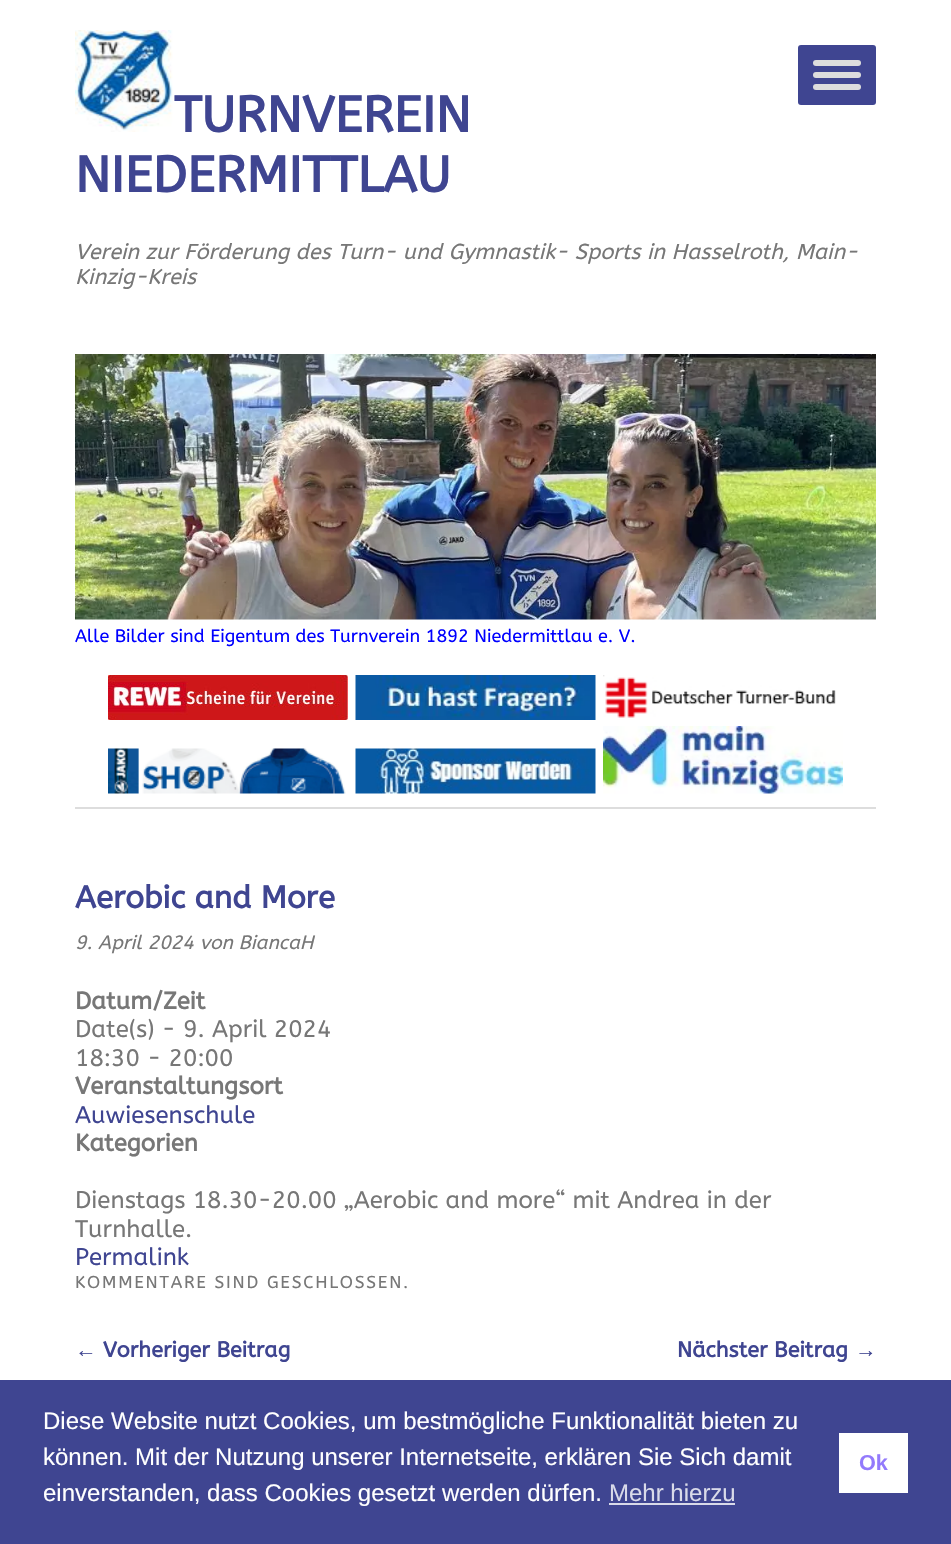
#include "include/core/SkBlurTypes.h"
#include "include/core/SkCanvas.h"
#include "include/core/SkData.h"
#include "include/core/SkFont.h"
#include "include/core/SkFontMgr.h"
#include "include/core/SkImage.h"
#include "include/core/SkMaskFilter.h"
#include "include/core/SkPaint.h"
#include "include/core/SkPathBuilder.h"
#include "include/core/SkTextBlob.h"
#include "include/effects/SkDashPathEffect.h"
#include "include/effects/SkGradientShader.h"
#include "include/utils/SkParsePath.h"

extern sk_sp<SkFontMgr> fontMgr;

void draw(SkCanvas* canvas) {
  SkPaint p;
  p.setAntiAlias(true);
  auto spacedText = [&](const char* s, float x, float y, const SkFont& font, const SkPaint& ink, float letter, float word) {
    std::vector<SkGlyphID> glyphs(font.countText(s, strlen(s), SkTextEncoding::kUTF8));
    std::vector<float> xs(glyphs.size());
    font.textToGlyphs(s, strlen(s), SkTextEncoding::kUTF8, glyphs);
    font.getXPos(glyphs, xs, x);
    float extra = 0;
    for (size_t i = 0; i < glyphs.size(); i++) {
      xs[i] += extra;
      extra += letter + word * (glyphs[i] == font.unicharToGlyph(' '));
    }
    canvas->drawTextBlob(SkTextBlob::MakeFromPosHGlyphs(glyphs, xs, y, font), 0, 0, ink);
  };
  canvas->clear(SK_ColorWHITE);
  p.setColor(SkColorSetRGB(63, 69, 145));
  canvas->drawRoundRect(SkRect::MakeLTRB(798, 45, 876, 105), 3, 3, p);
  p.setColor(SkColorSetRGB(221, 221, 221));
  canvas->drawRoundRect(SkRect::MakeLTRB(813, 60, 861, 66), 3, 3, p);
  canvas->drawRoundRect(SkRect::MakeLTRB(813, 72, 861, 78), 3, 3, p);
  canvas->drawRoundRect(SkRect::MakeLTRB(813, 84, 861, 90), 3, 3, p);
  canvas->drawImageRect(SkImages::DeferredFromEncodedData(SkData::MakeFromFileName("images/1.png")), SkRect::MakeLTRB(75, 30, 173, 132), SkSamplingOptions());
  canvas->drawImageRect(SkImages::DeferredFromEncodedData(SkData::MakeFromFileName("images/2.png")), SkRect::MakeLTRB(75, 354, 876, 620), SkSamplingOptions());
  canvas->drawImageRect(SkImages::DeferredFromEncodedData(SkData::MakeFromFileName("images/3.png")), SkRect::MakeLTRB(108, 675, 348, 720), SkSamplingOptions());
  canvas->drawImageRect(SkImages::DeferredFromEncodedData(SkData::MakeFromFileName("images/4.png")), SkRect::MakeLTRB(355, 675, 596, 720), SkSamplingOptions());
  canvas->drawImageRect(SkImages::DeferredFromEncodedData(SkData::MakeFromFileName("images/5.png")), SkRect::MakeLTRB(603, 675, 836, 718), SkSamplingOptions());
  canvas->drawImageRect(SkImages::DeferredFromEncodedData(SkData::MakeFromFileName("images/6.png")), SkRect::MakeLTRB(108, 748, 346, 794), SkSamplingOptions());
  canvas->drawImageRect(SkImages::DeferredFromEncodedData(SkData::MakeFromFileName("images/7.png")), SkRect::MakeLTRB(355, 748, 596, 794), SkSamplingOptions());
  canvas->drawImageRect(SkImages::DeferredFromEncodedData(SkData::MakeFromFileName("images/8.png")), SkRect::MakeLTRB(603, 726, 843, 794), SkSamplingOptions());
  canvas->drawRect(SkRect::MakeLTRB(75, 807, 876, 809), p);
  p.setColor(SkColorSetRGB(63, 69, 145));
  canvas->drawRect(SkRect::MakeLTRB(0, 1380, 951, 1544), p);
  p.setColor(SkColorSetRGB(217, 218, 233));
  canvas->drawRect(SkRect::MakeLTRB(609, 1503, 735, 1505), p);
  p.setColor(SK_ColorWHITE);
  canvas->drawRect(SkRect::MakeLTRB(839, 1433, 908, 1493), p);
  SkFont font1(fontMgr->matchFamilyStyle("ABeeZee", SkFontStyle::Bold()), 50.5f);
  font1.setSubpixel(true);
  p.setColor(SkColorSetRGB(63, 69, 145));
  canvas->drawString("TURNVEREIN", 174, 132, font1, p);
  canvas->drawString("NIEDERMITTLAU", 75, 192, font1, p);
  SkFont font2(fontMgr->matchFamilyStyle("ABeeZee", SkFontStyle::Italic()), 21.6f);
  font2.setSubpixel(true);
  p.setColor(SkColorSetRGB(119, 119, 119));
  canvas->drawString("Verein zur Förderung des Turn- und Gymnastik- Sports in Hasselroth, Main-", 75, 259, font2, p);
  canvas->drawString("Kinzig-Kreis", 75, 284, font2, p);
  SkFont font3(fontMgr->matchFamilyStyle("ABeeZee", SkFontStyle::Normal()), 18);
  font3.setSubpixel(true);
  p.setColor(SkColorSetRGB(0, 0, 255));
  canvas->drawString("Alle Bilder sind Eigentum des Turnverein 1892 Niedermittlau e. V.", 75, 642, font3, p);
  SkFont font4(fontMgr->matchFamilyStyle("ABeeZee", SkFontStyle::Bold()), 31.25f);
  font4.setSubpixel(true);
  p.setColor(SkColorSetRGB(63, 69, 145));
  canvas->drawString("Aerobic and More", 75, 908, font4, p);
  SkFont font5(fontMgr->matchFamilyStyle("ABeeZee", SkFontStyle::Italic()), 19.25f);
  font5.setSubpixel(true);
  p.setColor(SkColorSetRGB(119, 119, 119));
  canvas->drawString("9. April 2024 von BiancaH", 75, 949, font5, p);
  SkFont font6(fontMgr->matchFamilyStyle("ABeeZee", SkFontStyle::Bold()), 24);
  font6.setSubpixel(true);
  canvas->drawString("Datum/Zeit", 75, 1009, font6, p);
  SkFont font7(fontMgr->matchFamilyStyle("ABeeZee", SkFontStyle::Normal()), 24);
  font7.setSubpixel(true);
  canvas->drawString("Date(s) - 9. April 2024", 75, 1037, font7, p);
  canvas->drawString("18:30 - 20:00", 75, 1066, font7, p);
  canvas->drawString("Veranstaltungsort", 75, 1094, font6, p);
  p.setColor(SkColorSetRGB(63, 69, 145));
  canvas->drawString("Auwiesenschule", 75, 1123, font7, p);
  p.setColor(SkColorSetRGB(119, 119, 119));
  canvas->drawString("Kategorien", 75, 1151, font6, p);
  canvas->drawString("Dienstags 18.30-20.00 „Aerobic and more“ mit Andrea in der", 75, 1208, font7, p);
  canvas->drawString("Turnhalle.", 75, 1237, font7, p);
  p.setColor(SkColorSetRGB(63, 69, 145));
  canvas->drawString("Permalink", 75, 1265, font7, p);
  SkFont font8(fontMgr->matchFamilyStyle("ABeeZee", SkFontStyle::Normal()), 17.25f);
  font8.setSubpixel(true);
  p.setColor(SkColorSetRGB(119, 119, 119));
  spacedText("KOMMENTARE SIND GESCHLOSSEN.", 75, 1288, font8, p, 1.75f, 0);
  SkFont font9(fontMgr->matchFamilyStyle("Liberation Sans", SkFontStyle::Bold()), 21.6f);
  font9.setSubpixel(true);
  p.setColor(SkColorSetRGB(63, 69, 145));
  canvas->drawString("←", 75, 1357, font9, p);
  SkFont font10(fontMgr->matchFamilyStyle("ABeeZee", SkFontStyle::Bold()), 21.6f);
  font10.setSubpixel(true);
  canvas->drawString("Vorheriger Beitrag", 103, 1357, font10, p);
  canvas->drawString("Nächster Beitrag", 677, 1357, font10, p);
  canvas->drawString("→", 855, 1357, font9, p);
  SkFont font11(fontMgr->matchFamilyStyle("Liberation Sans", SkFontStyle::Normal()), 24);
  font11.setSubpixel(true);
  p.setColor(SK_ColorWHITE);
  canvas->drawString("Diese Website nutzt Cookies, um bestmögliche Funktionalität bieten zu", 43, 1429, font11, p);
  canvas->drawString("können. Mit der Nutzung unserer Internetseite, erklären Sie Sich damit", 43, 1465, font11, p);
  canvas->drawString("einverstanden, dass Cookies gesetzt werden dürfen.", 43, 1501, font11, p);
  p.setColor(SkColorSetRGB(217, 218, 233));
  canvas->drawString("Mehr hierzu", 609, 1501, font11, p);
  p.setColor(SkColorSetRGB(147, 122, 252));
  canvas->drawString("Ok", 859, 1470, font9, p);
}
